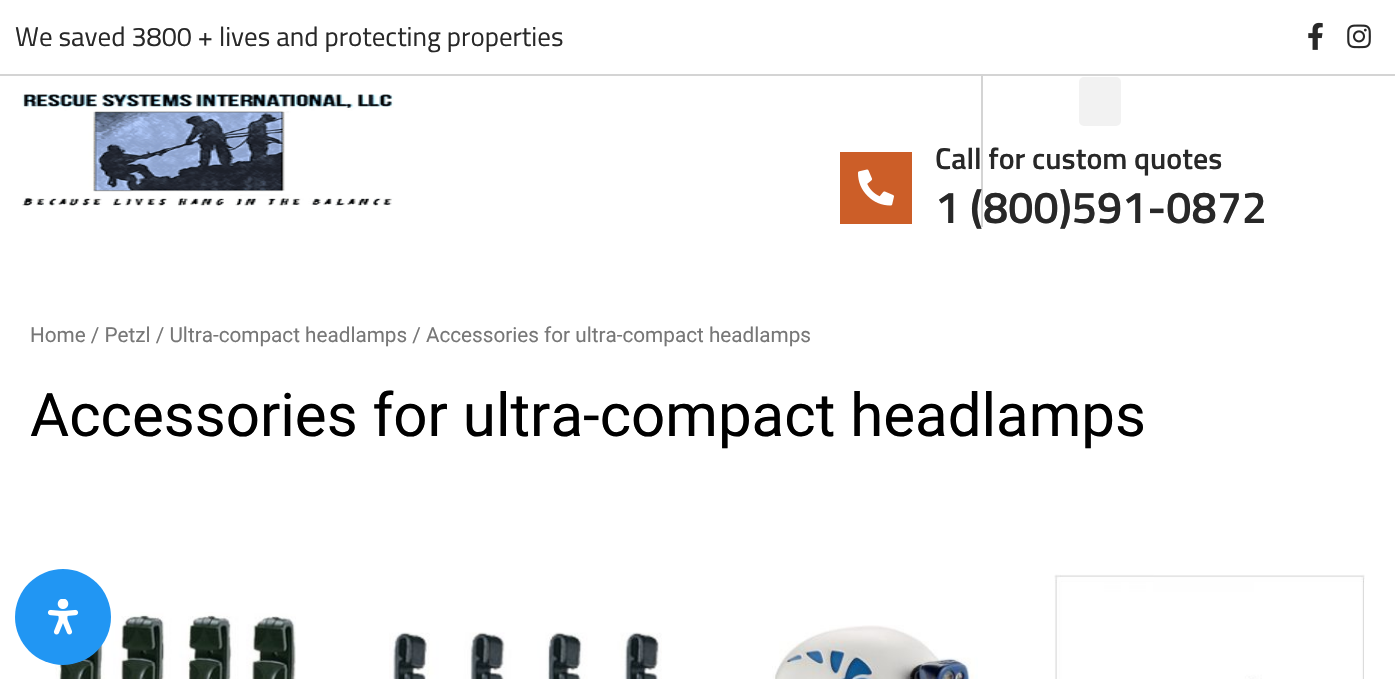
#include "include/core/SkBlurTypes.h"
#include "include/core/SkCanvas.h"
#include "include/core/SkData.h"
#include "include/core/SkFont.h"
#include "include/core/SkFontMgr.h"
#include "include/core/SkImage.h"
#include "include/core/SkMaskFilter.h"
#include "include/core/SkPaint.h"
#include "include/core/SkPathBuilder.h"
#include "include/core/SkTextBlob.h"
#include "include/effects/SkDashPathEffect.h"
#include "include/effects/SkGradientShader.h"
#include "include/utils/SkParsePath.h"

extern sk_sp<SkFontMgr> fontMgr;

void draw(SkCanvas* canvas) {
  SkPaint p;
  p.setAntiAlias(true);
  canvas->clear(SK_ColorWHITE);
  p.setColor(SkColorSetRGB(212, 212, 212));
  canvas->drawRect(SkRect::MakeLTRB(0, 74, 1395, 76), p);
  canvas->drawImageRect(SkImages::DeferredFromEncodedData(SkData::MakeFromFileName("images/1.png")), SkRect::MakeLTRB(1308, 22, 1323, 50), SkSamplingOptions());
  canvas->drawImageRect(SkImages::DeferredFromEncodedData(SkData::MakeFromFileName("images/2.png")), SkRect::MakeLTRB(1347, 24, 1371, 49), SkSamplingOptions());
  canvas->drawImageRect(SkImages::DeferredFromEncodedData(SkData::MakeFromFileName("images/3.png")), SkRect::MakeLTRB(22, 94, 394, 206), SkSamplingOptions());
  p.setColor(SkColorSetRGB(242, 242, 242));
  canvas->drawRoundRect(SkRect::MakeLTRB(1079, 77, 1121, 126), 5, 5, p);
  p.setColor(SkColorSetRGB(212, 212, 212));
  canvas->drawRect(SkRect::MakeLTRB(981, 75, 983, 227), p);
  p.setColor(SkColorSetRGB(204, 94, 40));
  canvas->drawRect(SkRect::MakeLTRB(840, 152, 912, 224), p);
  canvas->drawImageRect(SkImages::DeferredFromEncodedData(SkData::MakeFromFileName("images/4.png")), SkRect::MakeLTRB(858, 169, 894, 206), SkSamplingOptions());
  canvas->drawImageRect(SkImages::DeferredFromEncodedData(SkData::MakeFromFileName("images/5.png")), SkRect::MakeLTRB(55, 612, 296, 679), SkSamplingOptions());
  canvas->drawImageRect(SkImages::DeferredFromEncodedData(SkData::MakeFromFileName("images/6.png")), SkRect::MakeLTRB(389, 632, 662, 679), SkSamplingOptions());
  canvas->drawImageRect(SkImages::DeferredFromEncodedData(SkData::MakeFromFileName("images/7.png")), SkRect::MakeLTRB(772, 625, 978, 679), SkSamplingOptions());
  canvas->drawImageRect(SkImages::DeferredFromEncodedData(SkData::MakeFromFileName("images/8.png")), SkRect::MakeLTRB(1054, 574, 1365, 679), SkSamplingOptions());
  p.setColor(SkColorSetRGB(33, 150, 243));
  canvas->drawCircle(63, 617, 48, p);
  canvas->drawImageRect(SkImages::DeferredFromEncodedData(SkData::MakeFromFileName("images/9.png")), SkRect::MakeLTRB(47, 599, 79, 635), SkSamplingOptions());
  SkFont font1(fontMgr->matchFamilyStyle("Titillium Web", SkFontStyle::Normal()), 27);
  font1.setSubpixel(true);
  p.setColor(SkColorSetRGB(40, 40, 40));
  canvas->drawString("We saved 3800 + lives and protecting properties", 15, 46, font1, p);
  SkFont font2(fontMgr->matchFamilyStyle("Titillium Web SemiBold", SkFontStyle(600, SkFontStyle::kNormal_Width, SkFontStyle::kUpright_Slant)), 30);
  font2.setSubpixel(true);
  canvas->drawString("Call for custom quotes", 935, 169, font2, p);
  SkFont font3(fontMgr->matchFamilyStyle("Titillium Web SemiBold", SkFontStyle(600, SkFontStyle::kNormal_Width, SkFontStyle::kUpright_Slant)), 45);
  font3.setSubpixel(true);
  canvas->drawString("1 (800)591-0872", 935, 223, font3, p);
  SkFont font4(fontMgr->matchFamilyStyle("Roboto", SkFontStyle::Normal()), 20.7f);
  font4.setSubpixel(true);
  p.setColor(SkColorSetRGB(119, 119, 119));
  canvas->drawString("Home / Petzl / Ultra-compact headlamps / Accessories for ultra-compact headlamps", 30, 342, font4, p);
  SkFont font5(fontMgr->matchFamilyStyle("Roboto", SkFontStyle::Normal()), 60);
  font5.setSubpixel(true);
  p.setColor(SK_ColorBLACK);
  canvas->drawString("Accessories for ultra-compact headlamps", 30, 436, font5, p);
}
